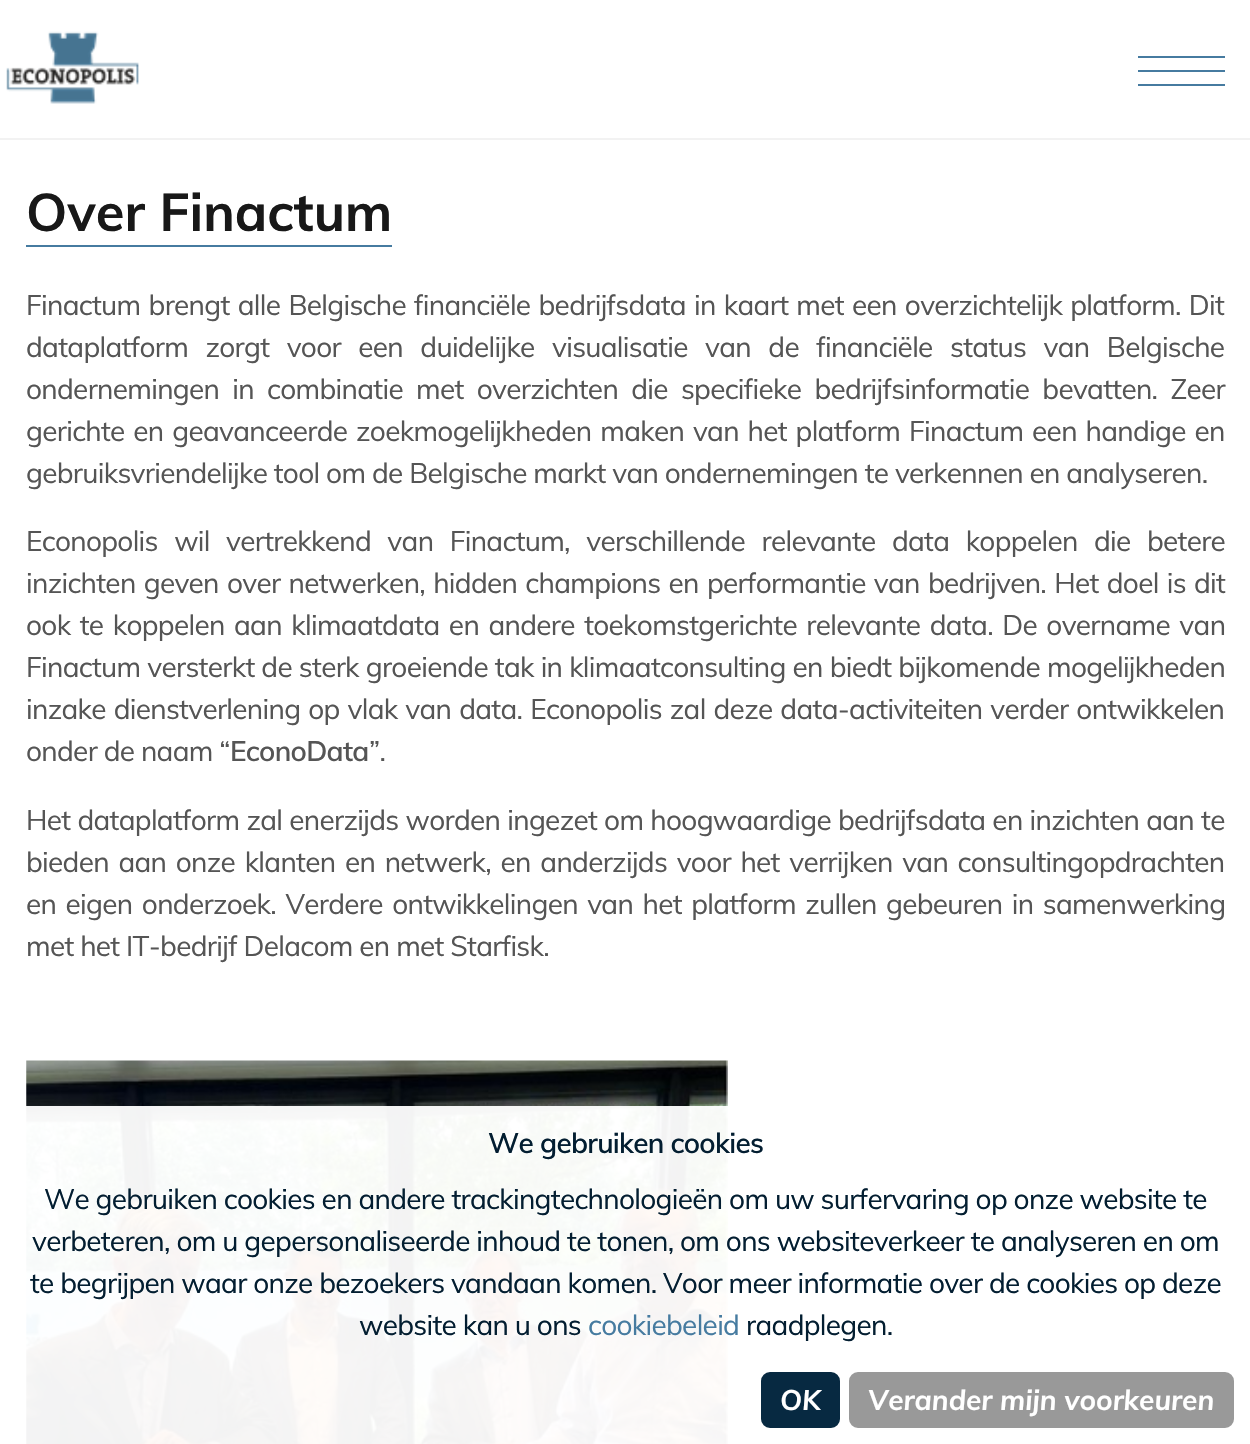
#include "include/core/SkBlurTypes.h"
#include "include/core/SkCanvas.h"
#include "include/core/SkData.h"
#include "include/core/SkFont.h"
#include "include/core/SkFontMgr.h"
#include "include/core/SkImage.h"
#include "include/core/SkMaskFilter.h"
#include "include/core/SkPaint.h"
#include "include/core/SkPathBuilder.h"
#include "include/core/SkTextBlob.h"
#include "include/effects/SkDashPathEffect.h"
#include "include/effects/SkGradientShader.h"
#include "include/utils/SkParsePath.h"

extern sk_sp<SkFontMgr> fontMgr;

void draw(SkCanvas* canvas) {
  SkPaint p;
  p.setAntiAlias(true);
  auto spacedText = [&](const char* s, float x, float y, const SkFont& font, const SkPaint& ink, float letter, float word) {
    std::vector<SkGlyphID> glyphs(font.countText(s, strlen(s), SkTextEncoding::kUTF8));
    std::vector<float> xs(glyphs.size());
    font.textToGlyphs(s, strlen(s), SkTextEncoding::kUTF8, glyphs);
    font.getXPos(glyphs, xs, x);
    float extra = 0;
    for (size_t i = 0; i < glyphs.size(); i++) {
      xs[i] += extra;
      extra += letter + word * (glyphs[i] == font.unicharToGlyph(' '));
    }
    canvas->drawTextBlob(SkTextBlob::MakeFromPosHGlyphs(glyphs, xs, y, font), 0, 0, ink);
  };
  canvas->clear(SK_ColorWHITE);
  p.setColor(SkColorSetRGB(242, 242, 242));
  canvas->drawRect(SkRect::MakeLTRB(0, 138, 1250, 140), p);
  canvas->drawImageRect(SkImages::DeferredFromEncodedData(SkData::MakeFromFileName("images/1.png")), SkRect::MakeLTRB(6, 31, 139, 104), SkSamplingOptions());
  p.setColor(SkColorSetRGB(70, 123, 160));
  canvas->drawRect(SkRect::MakeLTRB(1138, 70, 1225, 72), p);
  canvas->drawRect(SkRect::MakeLTRB(1138, 56, 1225, 58), p);
  canvas->drawRect(SkRect::MakeLTRB(1138, 84, 1225, 86), p);
  canvas->drawRect(SkRect::MakeLTRB(26, 245, 392, 247), p);
  canvas->drawImageRect(SkImages::DeferredFromEncodedData(SkData::MakeFromFileName("images/2.png")), SkRect::MakeLTRB(26, 1060, 728, 1444), SkSamplingOptions());
  p.setColor(SkColorSetARGB(242, 255, 255, 255));
  canvas->drawRect(SkRect::MakeLTRB(26, 1106, 728, 1444), p);
  p.setColor(SkColorSetRGB(7, 41, 65));
  canvas->drawRoundRect(SkRect::MakeLTRB(763.5f, 1374.5f, 837.5f, 1425.5f), 6.5f, 6.5f, p);
  p.setStyle(SkPaint::kStroke_Style);
  p.setStrokeWidth(5);
  canvas->drawRoundRect(SkRect::MakeLTRB(763.5f, 1374.5f, 837.5f, 1425.5f), 6.5f, 6.5f, p);
  p.setStyle(SkPaint::kFill_Style);
  p.setColor(SkColorSetRGB(153, 153, 153));
  canvas->drawRoundRect(SkRect::MakeLTRB(851.5f, 1374.5f, 1231.5f, 1425.5f), 6.5f, 6.5f, p);
  p.setStyle(SkPaint::kStroke_Style);
  canvas->drawRoundRect(SkRect::MakeLTRB(851.5f, 1374.5f, 1231.5f, 1425.5f), 6.5f, 6.5f, p);
  SkFont font1(fontMgr->matchFamilyStyle("Muli", SkFontStyle::Bold()), 52.5f);
  font1.setSubpixel(true);
  p.setStyle(SkPaint::kFill_Style);
  p.setColor(SkColorSetRGB(24, 24, 24));
  canvas->drawString("Over Finactum", 26, 231, font1, p);
  SkFont font2(fontMgr->matchFamilyStyle("Muli", SkFontStyle::Normal()), 28);
  font2.setSubpixel(true);
  p.setColor(SkColorSetRGB(85, 85, 85));
  spacedText("Finactum brengt alle Belgische financiële bedrijfsdata in kaart met een overzichtelijk platform. Dit", 26, 315, font2, p, -0.7f, 1.5f);
  spacedText("dataplatform zorgt voor een duidelijke visualisatie van de financiële status van Belgische", 26, 357, font2, p, -0.7f, 10.75f);
  spacedText("ondernemingen in combinatie met overzichten die specifieke bedrijfsinformatie bevatten. Zeer", 26, 399, font2, p, -0.7f, 6.5f);
  spacedText("gerichte en geavanceerde zoekmogelijkheden maken van het platform Finactum een handige en", 26, 441, font2, p, -0.7f, 2.1f);
  spacedText("gebruiksvriendelijke tool om de Belgische markt van ondernemingen te verkennen en analyseren.", 26, 483, font2, p, -0.7f, 0);
  spacedText("Econopolis wil vertrekkend van Finactum, verschillende relevante data koppelen die betere", 26, 551, font2, p, -0.7f, 9.75f);
  spacedText("inzichten geven over netwerken, hidden champions en performantie van bedrijven. Het doel is dit", 26, 593, font2, p, -0.7f, 1.5f);
  spacedText("ook te koppelen aan klimaatdata en andere toekomstgerichte relevante data. De overname van", 26, 635, font2, p, -0.7f, 2.75f);
  spacedText("Finactum versterkt de sterk groeiende tak in klimaatconsulting en biedt bijkomende mogelijkheden", 26, 677, font2, p, -0.7f, 0.25f);
  spacedText("inzake dienstverlening op vlak van data. Econopolis zal deze data-activiteiten verder ontwikkelen", 26, 719, font2, p, -0.7f, 1.25f);
  spacedText("onder de naam “", 26, 761, font2, p, -0.7f, 0);
  SkFont font3(fontMgr->matchFamilyStyle("Muli", SkFontStyle(600, SkFontStyle::kNormal_Width, SkFontStyle::kUpright_Slant)), 28);
  font3.setSubpixel(true);
  spacedText("EconoData", 230, 761, font3, p, -0.7f, 0);
  spacedText("”.", 369, 761, font2, p, -0.7f, 0);
  spacedText("Het dataplatform zal enerzijds worden ingezet om hoogwaardige bedrijfsdata en inzichten aan te", 26, 830, font2, p, -0.7f, 0.4f);
  spacedText("bieden aan onze klanten en netwerk, en anderzijds voor het verrijken van consultingopdrachten", 26, 872, font2, p, -0.7f, 2.9f);
  spacedText("en eigen onderzoek. Verdere ontwikkelingen van het platform zullen gebeuren in samenwerking", 26, 914, font2, p, -0.7f, 2.75f);
  spacedText("met het IT-bedrijf Delacom en met Starfisk.", 26, 956, font2, p, -0.7f, 0);
  p.setColor(SkColorSetRGB(3, 30, 49));
  spacedText("We gebruiken cookies", 488, 1153, font3, p, -0.7f, 0);
  spacedText("We gebruiken cookies en andere trackingtechnologieën om uw surfervaring op onze website te", 44, 1209, font2, p, -0.7f, 0);
  spacedText("verbeteren, om u gepersonaliseerde inhoud te tonen, om ons websiteverkeer te analyseren en om", 32, 1251, font2, p, -0.7f, 0);
  spacedText("te begrijpen waar onze bezoekers vandaan komen. Voor meer informatie over de cookies op deze", 30, 1293, font2, p, -0.7f, 0);
  spacedText("website kan u ons", 359, 1335, font2, p, -0.7f, 0);
  p.setColor(SkColorSetRGB(70, 123, 160));
  spacedText("cookiebeleid", 588, 1335, font2, p, -0.7f, 0);
  p.setColor(SkColorSetRGB(3, 30, 49));
  spacedText("raadplegen.", 746, 1335, font2, p, -0.7f, 0);
  SkFont font4(fontMgr->matchFamilyStyle("Muli", SkFontStyle::BoldItalic()), 28);
  font4.setSubpixel(true);
  p.setColor(SK_ColorWHITE);
  canvas->drawString("OK", 780, 1410, font4, p);
  canvas->drawString("Verander mijn voorkeuren", 868, 1410, font4, p);
}
